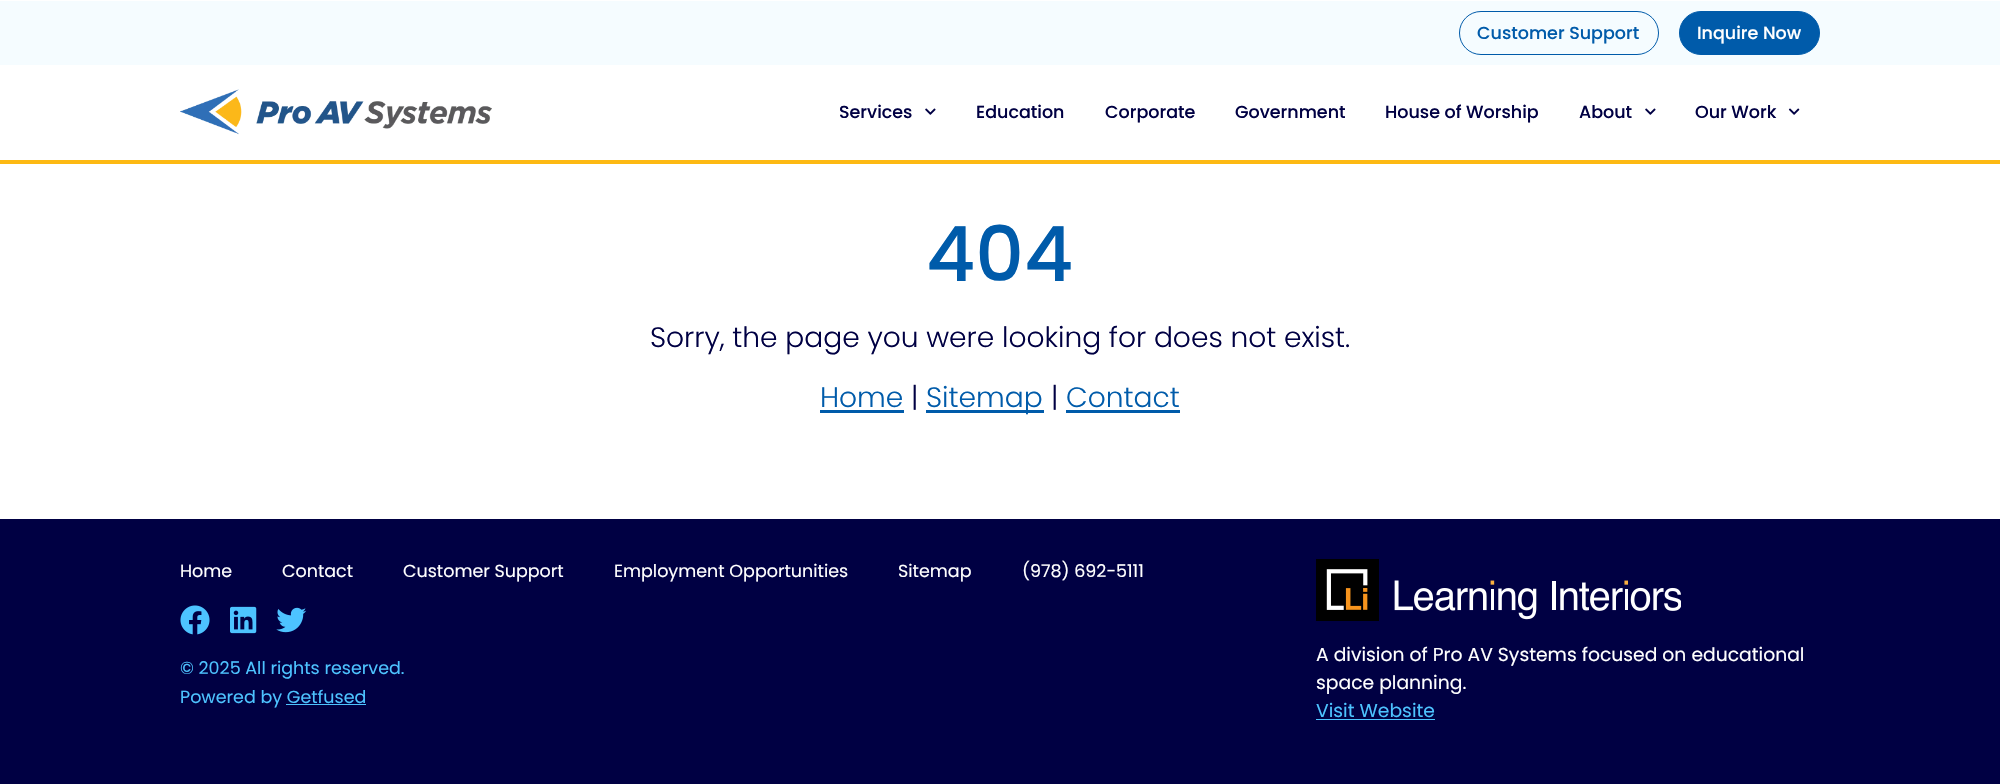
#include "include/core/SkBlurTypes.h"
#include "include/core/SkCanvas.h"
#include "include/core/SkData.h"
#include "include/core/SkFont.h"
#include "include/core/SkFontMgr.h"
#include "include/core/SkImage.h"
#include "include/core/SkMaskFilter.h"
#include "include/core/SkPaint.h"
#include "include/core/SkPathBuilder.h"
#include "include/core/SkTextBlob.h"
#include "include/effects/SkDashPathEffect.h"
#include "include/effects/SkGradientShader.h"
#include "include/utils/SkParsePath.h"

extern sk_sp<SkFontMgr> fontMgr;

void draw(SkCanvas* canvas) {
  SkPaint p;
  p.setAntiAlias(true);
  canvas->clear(SK_ColorWHITE);
  p.setColor(SkColorSetRGB(245, 252, 255));
  canvas->drawRect(SkRect::MakeLTRB(0, 1, 2000, 65), p);
  p.setStyle(SkPaint::kStroke_Style);
  p.setStrokeWidth(1);
  p.setColor(SkColorSetRGB(0, 91, 170));
  canvas->drawRoundRect(SkRect::MakeLTRB(1459.5f, 11.5f, 1658.5f, 54.5f), 21.5f, 21.5f, p);
  p.setStyle(SkPaint::kFill_Style);
  canvas->drawRoundRect(SkRect::MakeLTRB(1679.5f, 11.5f, 1819.5f, 54.5f), 21.5f, 21.5f, p);
  p.setStyle(SkPaint::kStroke_Style);
  canvas->drawRoundRect(SkRect::MakeLTRB(1679.5f, 11.5f, 1819.5f, 54.5f), 21.5f, 21.5f, p);
  p.setStyle(SkPaint::kFill_Style);
  p.setColor(SkColorSetRGB(253, 185, 19));
  canvas->drawRect(SkRect::MakeLTRB(0, 160, 2000, 164), p);
  canvas->drawImageRect(SkImages::DeferredFromEncodedData(SkData::MakeFromFileName("images/1.png")), SkRect::MakeLTRB(180, 89, 492, 135), SkSamplingOptions());
  canvas->drawImageRect(SkImages::DeferredFromEncodedData(SkData::MakeFromFileName("images/2.png")), SkRect::MakeLTRB(925, 108, 936, 115), SkSamplingOptions());
  canvas->drawImageRect(SkImages::DeferredFromEncodedData(SkData::MakeFromFileName("images/2.png")), SkRect::MakeLTRB(1645, 108, 1656, 115), SkSamplingOptions());
  canvas->drawImageRect(SkImages::DeferredFromEncodedData(SkData::MakeFromFileName("images/3.png")), SkRect::MakeLTRB(1788, 108, 1800, 115), SkSamplingOptions());
  p.setColor(SkColorSetRGB(0, 91, 170));
  canvas->drawRect(SkRect::MakeLTRB(820, 410, 904, 413), p);
  canvas->drawRect(SkRect::MakeLTRB(926, 410, 1044, 413), p);
  canvas->drawRect(SkRect::MakeLTRB(1066, 410, 1180, 413), p);
  p.setColor(SkColorSetRGB(0, 0, 67));
  canvas->drawRect(SkRect::MakeLTRB(0, 519, 2000, 784), p);
  canvas->drawImageRect(SkImages::DeferredFromEncodedData(SkData::MakeFromFileName("images/4.png")), SkRect::MakeLTRB(180, 605, 210, 635), SkSamplingOptions());
  canvas->drawImageRect(SkImages::DeferredFromEncodedData(SkData::MakeFromFileName("images/5.png")), SkRect::MakeLTRB(230, 606, 257, 634), SkSamplingOptions());
  canvas->drawImageRect(SkImages::DeferredFromEncodedData(SkData::MakeFromFileName("images/6.png")), SkRect::MakeLTRB(276, 607, 307, 633), SkSamplingOptions());
  p.setColor(SkColorSetRGB(77, 195, 255));
  canvas->drawRect(SkRect::MakeLTRB(286, 704, 366, 705), p);
  canvas->drawImageRect(SkImages::DeferredFromEncodedData(SkData::MakeFromFileName("images/7.png")), SkRect::MakeLTRB(1316, 559, 1681, 621), SkSamplingOptions());
  canvas->drawRect(SkRect::MakeLTRB(1316, 719, 1435, 720), p);
  SkFont font1(fontMgr->matchFamilyStyle("Poppins", SkFontStyle(500, SkFontStyle::kNormal_Width, SkFontStyle::kUpright_Slant)), 17.5f);
  font1.setSubpixel(true);
  p.setColor(SkColorSetRGB(0, 91, 170));
  canvas->drawString("Customer Support", 1477, 39, font1, p);
  p.setColor(SK_ColorWHITE);
  canvas->drawString("Inquire Now", 1697, 39, font1, p);
  p.setColor(SkColorSetRGB(0, 0, 67));
  canvas->drawString("Services", 839, 118, font1, p);
  canvas->drawString("Education", 976, 118, font1, p);
  canvas->drawString("Corporate", 1105, 118, font1, p);
  canvas->drawString("Government", 1235, 118, font1, p);
  canvas->drawString("House of Worship", 1385, 118, font1, p);
  canvas->drawString("About", 1579, 118, font1, p);
  canvas->drawString("Our Work", 1695, 118, font1, p);
  SkFont font2(fontMgr->matchFamilyStyle("Poppins", SkFontStyle(500, SkFontStyle::kNormal_Width, SkFontStyle::kUpright_Slant)), 76);
  font2.setSubpixel(true);
  p.setColor(SkColorSetRGB(0, 91, 170));
  canvas->drawString("404", 926, 281, font2, p);
  SkFont font3(fontMgr->matchFamilyStyle("Poppins", SkFontStyle(300, SkFontStyle::kNormal_Width, SkFontStyle::kUpright_Slant)), 28.1f);
  font3.setSubpixel(true);
  p.setColor(SkColorSetRGB(0, 0, 67));
  canvas->drawString("Sorry, the page you were looking for does not exist.", 650, 347, font3, p);
  p.setColor(SkColorSetRGB(0, 91, 170));
  canvas->drawString("Home", 820, 407, font3, p);
  p.setColor(SkColorSetRGB(0, 0, 67));
  canvas->drawString("|", 911, 407, font3, p);
  p.setColor(SkColorSetRGB(0, 91, 170));
  canvas->drawString("Sitemap", 926, 407, font3, p);
  p.setColor(SkColorSetRGB(0, 0, 67));
  canvas->drawString("|", 1051, 407, font3, p);
  p.setColor(SkColorSetRGB(0, 91, 170));
  canvas->drawString("Contact", 1066, 407, font3, p);
  SkFont font4(fontMgr->matchFamilyStyle("Poppins", SkFontStyle::Normal()), 17.5f);
  font4.setSubpixel(true);
  p.setColor(SK_ColorWHITE);
  canvas->drawString("Home", 180, 577, font4, p);
  canvas->drawString("Contact", 282, 577, font4, p);
  canvas->drawString("Customer Support", 403, 577, font4, p);
  canvas->drawString("Employment Opportunities", 614, 577, font4, p);
  canvas->drawString("Sitemap", 898, 577, font4, p);
  canvas->drawString("(978) 692-5111", 1022, 577, font4, p);
  p.setColor(SkColorSetRGB(77, 195, 255));
  canvas->drawString("© 2025 All rights reserved.", 180, 674, font4, p);
  canvas->drawString("Powered by Getfused", 180, 703, font4, p);
  SkFont font5(fontMgr->matchFamilyStyle("Poppins", SkFontStyle::Normal()), 18.75f);
  font5.setSubpixel(true);
  p.setColor(SK_ColorWHITE);
  canvas->drawString("A division of Pro AV Systems focused on educational", 1316, 661, font5, p);
  canvas->drawString("space planning.", 1316, 689, font5, p);
  p.setColor(SkColorSetRGB(77, 195, 255));
  canvas->drawString("Visit Website", 1316, 717, font5, p);
}
